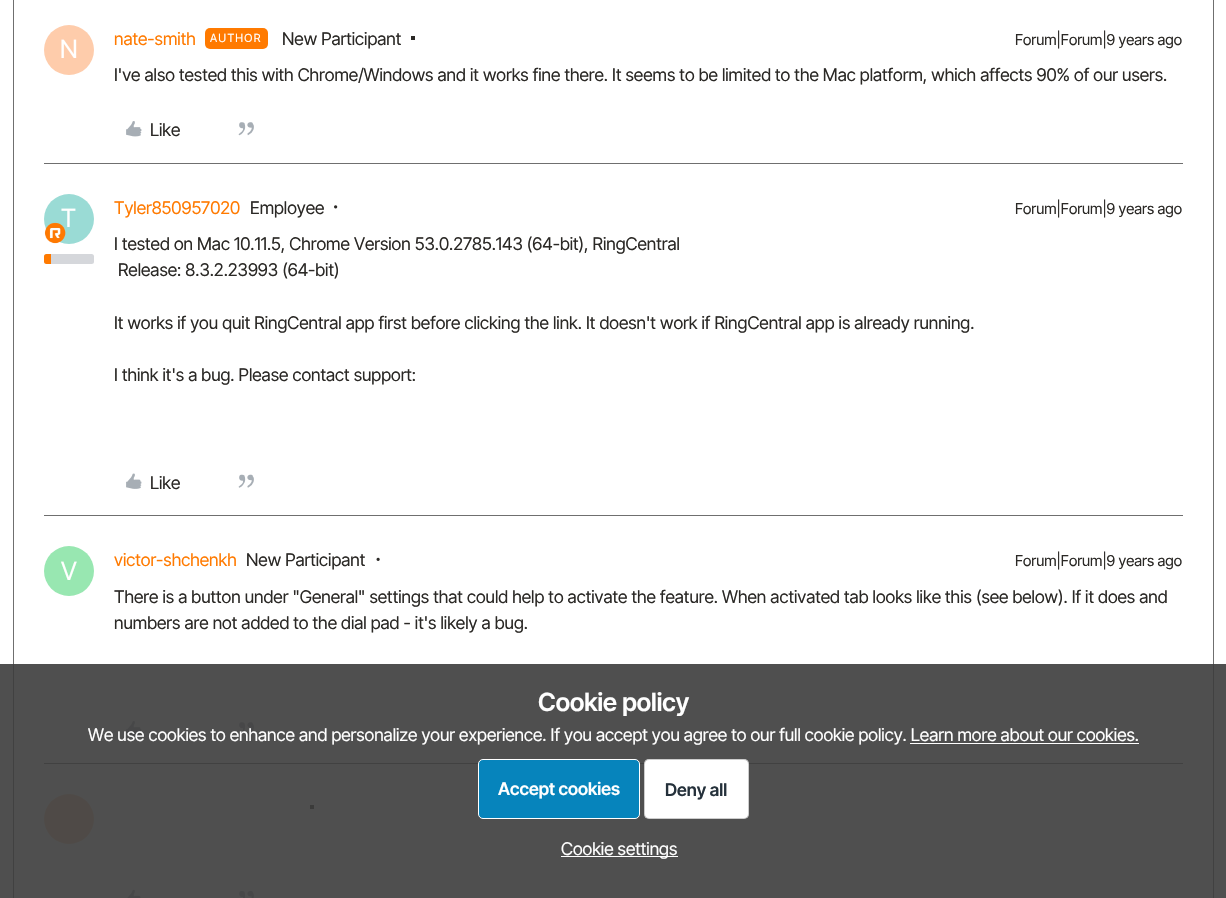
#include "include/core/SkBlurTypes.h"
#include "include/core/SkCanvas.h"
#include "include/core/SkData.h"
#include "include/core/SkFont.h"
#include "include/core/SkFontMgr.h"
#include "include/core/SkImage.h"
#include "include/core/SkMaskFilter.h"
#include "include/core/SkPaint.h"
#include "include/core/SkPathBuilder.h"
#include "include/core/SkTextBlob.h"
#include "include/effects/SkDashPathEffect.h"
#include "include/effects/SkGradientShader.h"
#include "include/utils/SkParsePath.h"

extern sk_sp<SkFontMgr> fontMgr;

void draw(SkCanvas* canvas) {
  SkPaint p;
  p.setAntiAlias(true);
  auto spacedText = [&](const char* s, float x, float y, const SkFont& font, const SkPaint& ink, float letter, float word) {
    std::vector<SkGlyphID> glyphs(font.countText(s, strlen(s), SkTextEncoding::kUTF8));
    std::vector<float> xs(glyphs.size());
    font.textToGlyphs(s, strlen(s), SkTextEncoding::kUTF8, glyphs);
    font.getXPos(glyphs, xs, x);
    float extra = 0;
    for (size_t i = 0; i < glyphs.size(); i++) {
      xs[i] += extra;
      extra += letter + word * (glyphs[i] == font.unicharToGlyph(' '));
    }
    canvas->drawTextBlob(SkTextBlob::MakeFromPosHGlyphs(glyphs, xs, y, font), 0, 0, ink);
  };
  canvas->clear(SK_ColorWHITE);
  p.setStyle(SkPaint::kStroke_Style);
  p.setStrokeWidth(1);
  p.setColor(SkColorSetRGB(111, 111, 111));
  canvas->drawRect(SkRect::MakeLTRB(13.5f, -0.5f, 1213.5f, 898.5f), p);
  p.setStyle(SkPaint::kFill_Style);
  p.setColor(SkColorSetRGB(254, 204, 171));
  canvas->drawCircle(69, 50, 25, p);
  p.setColor(SkColorSetRGB(255, 122, 0));
  canvas->drawRoundRect(SkRect::MakeLTRB(205, 28, 268, 49), 5, 5, p);
  p.setColor(SkColorSetRGB(43, 41, 38));
  canvas->drawRect(SkRect::MakeLTRB(411, 36, 415, 40), p);
  canvas->drawImageRect(SkImages::DeferredFromEncodedData(SkData::MakeFromFileName("images/1.png")), SkRect::MakeLTRB(126, 121, 142, 137), SkSamplingOptions());
  canvas->drawImageRect(SkImages::DeferredFromEncodedData(SkData::MakeFromFileName("images/2.png")), SkRect::MakeLTRB(238, 122, 254, 136), SkSamplingOptions());
  p.setColor(SkColorSetRGB(111, 111, 111));
  canvas->drawRect(SkRect::MakeLTRB(44, 163, 1183, 164), p);
  p.setColor(SkColorSetRGB(154, 219, 213));
  canvas->drawCircle(69, 219, 25, p);
  p.setColor(SkColorSetRGB(213, 215, 219));
  canvas->drawRoundRect(SkRect::MakeLTRB(44, 254, 94, 264), 2.5f, 2.5f, p);
  p.setColor(SkColorSetRGB(255, 122, 0));
  canvas->drawPath(SkPathBuilder().moveTo(46.5f, 254).lineTo(51, 254).lineTo(51, 264).lineTo(46.5f, 264).cubicTo(45, 264, 44, 263, 44, 261.5f).lineTo(44, 256.5f).cubicTo(44, 255, 45, 254, 46.5f, 254).close().detach(), p);
  canvas->drawImageRect(SkImages::DeferredFromEncodedData(SkData::MakeFromFileName("images/4.png")), SkRect::MakeLTRB(334, 205, 338, 209), SkSamplingOptions());
  canvas->drawImageRect(SkImages::DeferredFromEncodedData(SkData::MakeFromFileName("images/5.png")), SkRect::MakeLTRB(126, 473, 142, 489), SkSamplingOptions());
  canvas->drawImageRect(SkImages::DeferredFromEncodedData(SkData::MakeFromFileName("images/6.png")), SkRect::MakeLTRB(238, 474, 254, 488), SkSamplingOptions());
  p.setColor(SkColorSetRGB(111, 111, 111));
  canvas->drawRect(SkRect::MakeLTRB(44, 515, 1183, 516), p);
  p.setColor(SkColorSetRGB(152, 231, 177));
  canvas->drawCircle(69, 571, 25, p);
  canvas->drawImageRect(SkImages::DeferredFromEncodedData(SkData::MakeFromFileName("images/7.png")), SkRect::MakeLTRB(376, 557, 380, 561), SkSamplingOptions());
  canvas->drawImageRect(SkImages::DeferredFromEncodedData(SkData::MakeFromFileName("images/1.png")), SkRect::MakeLTRB(126, 721, 142, 737), SkSamplingOptions());
  canvas->drawImageRect(SkImages::DeferredFromEncodedData(SkData::MakeFromFileName("images/2.png")), SkRect::MakeLTRB(238, 722, 254, 736), SkSamplingOptions());
  p.setColor(SkColorSetRGB(111, 111, 111));
  canvas->drawRect(SkRect::MakeLTRB(44, 763, 1183, 764), p);
  p.setColor(SkColorSetRGB(254, 204, 171));
  canvas->drawCircle(69, 819, 25, p);
  p.setColor(SkColorSetRGB(43, 41, 38));
  canvas->drawRect(SkRect::MakeLTRB(310, 805, 314, 809), p);
  canvas->drawImageRect(SkImages::DeferredFromEncodedData(SkData::MakeFromFileName("images/8.png")), SkRect::MakeLTRB(127, 889, 141, 898), SkSamplingOptions());
  canvas->drawImageRect(SkImages::DeferredFromEncodedData(SkData::MakeFromFileName("images/9.png")), SkRect::MakeLTRB(239, 891, 254, 898), SkSamplingOptions());
  p.setColor(SkColorSetARGB(230, 60, 60, 60));
  canvas->drawRect(SkRect::MakeLTRB(0, 664, 1226, 898), p);
  p.setColor(SK_ColorWHITE);
  canvas->drawRect(SkRect::MakeLTRB(910, 743, 1139, 744), p);
  p.setColor(SkColorSetRGB(6, 132, 188));
  canvas->drawRoundRect(SkRect::MakeLTRB(478.5f, 759.5f, 639.5f, 818.5f), 4.5f, 4.5f, p);
  p.setStyle(SkPaint::kStroke_Style);
  p.setColor(SK_ColorWHITE);
  canvas->drawRoundRect(SkRect::MakeLTRB(478.5f, 759.5f, 639.5f, 818.5f), 4.5f, 4.5f, p);
  p.setStyle(SkPaint::kFill_Style);
  canvas->drawRoundRect(SkRect::MakeLTRB(644, 759, 749, 819), 5, 5, p);
  p.setStyle(SkPaint::kStroke_Style);
  p.setColor(SkColorSetARGB(51, 0, 0, 0));
  canvas->drawRoundRect(SkRect::MakeLTRB(644.5f, 759.5f, 748.5f, 818.5f), 4.5f, 4.5f, p);
  p.setStyle(SkPaint::kFill_Style);
  p.setColor(SK_ColorWHITE);
  canvas->drawRect(SkRect::MakeLTRB(561, 856, 678, 857), p);
  SkFont font1(fontMgr->matchFamilyStyle("Inter Tight", SkFontStyle::Normal()), 25);
  font1.setSubpixel(true);
  canvas->drawString("N", 60, 58, font1, p);
  SkFont font2(fontMgr->matchFamilyStyle("Inter Tight", SkFontStyle::Normal()), 17.5f);
  font2.setSubpixel(true);
  p.setColor(SkColorSetRGB(255, 122, 0));
  canvas->drawString("nate-smith", 114, 45, font2, p);
  SkFont font3(fontMgr->matchFamilyStyle("Inter Tight", SkFontStyle::Normal()), 11.25f);
  font3.setSubpixel(true);
  p.setColor(SK_ColorWHITE);
  spacedText("AUTHOR", 210, 42, font3, p, 1.25f, 0);
  p.setColor(SkColorSetRGB(43, 41, 38));
  canvas->drawString("New Participant", 282, 45, font2, p);
  SkFont font4(fontMgr->matchFamilyStyle("Inter Tight", SkFontStyle::Normal()), 15);
  font4.setSubpixel(true);
  canvas->drawString("Forum|Forum|9 years ago", 1015, 45, font4, p);
  canvas->drawString("I've also tested this with Chrome/Windows and it works fine there. It seems to be limited to the Mac platform, which affects 90% of our users.", 114, 81, font2, p);
  canvas->drawString("Like", 150, 136, font2, p);
  p.setColor(SK_ColorWHITE);
  canvas->drawString("T", 61, 227, font1, p);
  canvas->drawImageRect(SkImages::DeferredFromEncodedData(SkData::MakeFromFileName("images/3.png")), SkRect::MakeLTRB(44, 222, 66, 244), SkSamplingOptions());
  p.setColor(SkColorSetRGB(255, 122, 0));
  canvas->drawString("Tyler850957020", 114, 214, font2, p);
  p.setColor(SkColorSetRGB(43, 41, 38));
  canvas->drawString("Employee", 250, 214, font2, p);
  canvas->drawString("Forum|Forum|9 years ago", 1015, 214, font4, p);
  canvas->drawString("I tested on Mac 10.11.5, Chrome Version 53.0.2785.143 (64-bit), RingCentral", 114, 250, font2, p);
  canvas->drawString("Release: 8.3.2.23993 (64-bit)", 118, 276, font2, p);
  canvas->drawString("It works if you quit RingCentral app first before clicking the link. It doesn't work if RingCentral app is already running.", 114, 329, font2, p);
  canvas->drawString("I think it's a bug. Please contact support:", 114, 381, font2, p);
  canvas->drawString("Like", 150, 489, font2, p);
  p.setColor(SK_ColorWHITE);
  canvas->drawString("V", 61, 580, font1, p);
  p.setColor(SkColorSetRGB(255, 122, 0));
  canvas->drawString("victor-shchenkh", 114, 566, font2, p);
  p.setColor(SkColorSetRGB(43, 41, 38));
  canvas->drawString("New Participant", 246, 566, font2, p);
  canvas->drawString("Forum|Forum|9 years ago", 1015, 566, font4, p);
  canvas->drawString("There is a button under \"General\" settings that could help to activate the feature. When activated tab looks like this (see below). If it does and", 114, 603, font2, p);
  canvas->drawString("numbers are not added to the dial pad - it's likely a bug.", 114, 629, font2, p);
  SkFont font5(fontMgr->matchFamilyStyle("Inter Tight", SkFontStyle(600, SkFontStyle::kNormal_Width, SkFontStyle::kUpright_Slant)), 25);
  font5.setSubpixel(true);
  p.setColor(SK_ColorWHITE);
  canvas->drawString("Cookie policy", 538, 711, font5, p);
  canvas->drawString("We use cookies to enhance and personalize your experience. If you accept you agree to our full cookie policy. Learn more about our cookies.", 88, 741, font2, p);
  SkFont font6(fontMgr->matchFamilyStyle("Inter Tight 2", SkFontStyle(600, SkFontStyle::kNormal_Width, SkFontStyle::kUpright_Slant)), 17.5f);
  font6.setSubpixel(true);
  canvas->drawString("Accept cookies", 498, 795, font6, p);
  p.setColor(SkColorSetRGB(37, 49, 59));
  canvas->drawString("Deny all", 665, 796, font6, p);
  p.setColor(SK_ColorWHITE);
  canvas->drawString("Cookie settings", 561, 855, font2, p);
}
